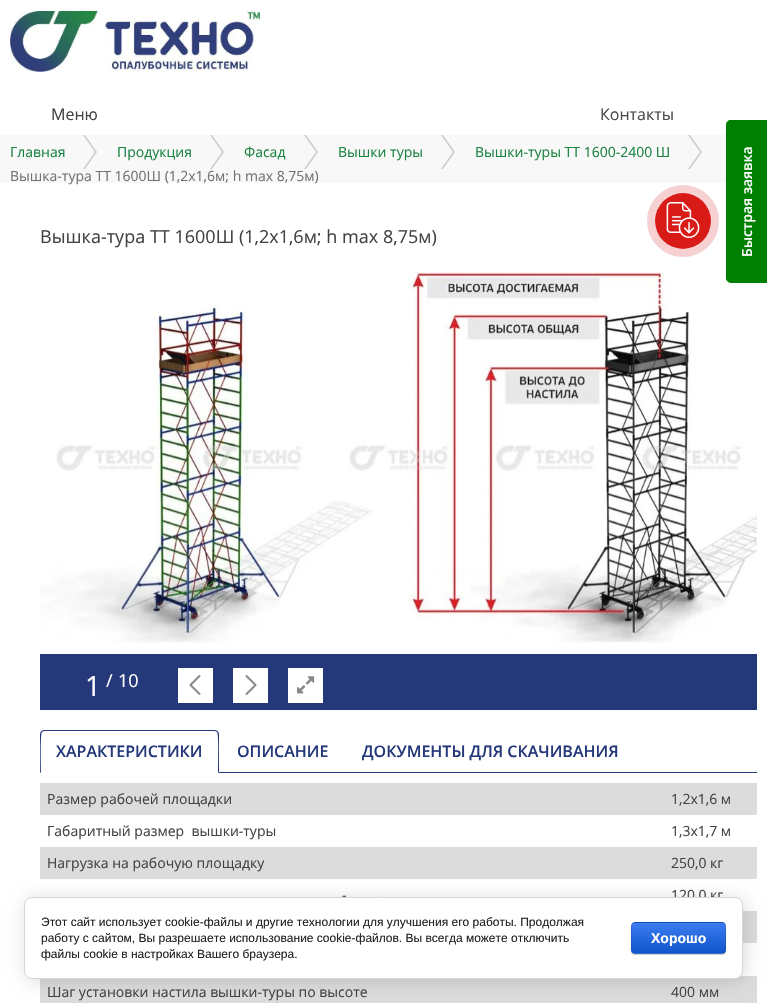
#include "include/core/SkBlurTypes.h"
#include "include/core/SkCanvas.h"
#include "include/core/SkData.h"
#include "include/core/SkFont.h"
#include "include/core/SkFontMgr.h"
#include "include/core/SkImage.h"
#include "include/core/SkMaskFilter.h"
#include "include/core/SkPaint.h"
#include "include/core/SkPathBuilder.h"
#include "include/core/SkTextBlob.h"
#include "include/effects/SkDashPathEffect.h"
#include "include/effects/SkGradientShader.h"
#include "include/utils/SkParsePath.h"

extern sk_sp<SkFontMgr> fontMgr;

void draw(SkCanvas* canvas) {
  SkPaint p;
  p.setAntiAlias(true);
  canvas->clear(SK_ColorWHITE);
  canvas->drawImageRect(SkImages::DeferredFromEncodedData(SkData::MakeFromFileName("images/1.png")), SkRect::MakeLTRB(10, 11, 260, 72), SkSamplingOptions());
  p.setColor(SkColorSetRGB(248, 248, 248));
  canvas->drawRect(SkRect::MakeLTRB(0, 135, 726, 183), p);
  p.setColor(SkColorSetRGB(206, 206, 206));
  canvas->drawPath(SkPathBuilder(SkPathFillType::kEvenOdd).moveTo(85, 135).lineTo(97, 152).lineTo(85, 169).lineTo(83, 169).lineTo(95, 152).lineTo(83, 135).close().detach(), p);
  canvas->drawPath(SkPathBuilder(SkPathFillType::kEvenOdd).moveTo(212, 135).lineTo(224, 152).lineTo(212, 169).lineTo(210, 169).lineTo(222, 152).lineTo(210, 135).close().detach(), p);
  canvas->drawPath(SkPathBuilder(SkPathFillType::kEvenOdd).moveTo(306, 135).lineTo(318, 152).lineTo(306, 169).lineTo(304, 169).lineTo(316, 152).lineTo(304, 135).close().detach(), p);
  canvas->drawPath(SkPathBuilder(SkPathFillType::kEvenOdd).moveTo(443, 135).lineTo(455, 152).lineTo(443, 169).lineTo(441, 169).lineTo(453, 152).lineTo(441, 135).close().detach(), p);
  canvas->drawPath(SkPathBuilder(SkPathFillType::kEvenOdd).moveTo(690, 135).lineTo(702, 152).lineTo(690, 169).lineTo(688, 169).lineTo(700, 152).lineTo(688, 135).close().detach(), p);
  canvas->drawImageRect(SkImages::DeferredFromEncodedData(SkData::MakeFromFileName("images/2.png")), SkRect::MakeLTRB(40, 271, 757, 643), SkSamplingOptions());
  p.setColor(SkColorSetRGB(36, 56, 122));
  canvas->drawRect(SkRect::MakeLTRB(40, 654, 757, 710), p);
  p.setColor(SK_ColorWHITE);
  canvas->drawRect(SkRect::MakeLTRB(178, 668, 213, 703), p);
  canvas->drawImageRect(SkImages::DeferredFromEncodedData(SkData::MakeFromFileName("images/3.png")), SkRect::MakeLTRB(189, 675, 201, 695), SkSamplingOptions());
  canvas->drawRect(SkRect::MakeLTRB(233, 668, 268, 703), p);
  canvas->drawImageRect(SkImages::DeferredFromEncodedData(SkData::MakeFromFileName("images/4.png")), SkRect::MakeLTRB(245, 675, 257, 695), SkSamplingOptions());
  canvas->drawRect(SkRect::MakeLTRB(288, 668, 323, 703), p);
  canvas->drawImageRect(SkImages::DeferredFromEncodedData(SkData::MakeFromFileName("images/5.png")), SkRect::MakeLTRB(297, 676, 315, 694), SkSamplingOptions());
  p.setColor(SkColorSetRGB(36, 56, 122));
  canvas->drawRect(SkRect::MakeLTRB(219, 772, 757, 773), p);
  canvas->drawPath(SkPathBuilder().moveTo(44, 730).lineTo(41, 731).lineTo(42, 732).lineTo(44, 731).lineTo(215, 731).lineTo(217, 732).lineTo(218, 731).lineTo(215, 730).close().detach(), p);
  canvas->drawPath(SkPathBuilder().moveTo(219, 773).lineTo(219, 734).cubicTo(219, 733, 218, 732, 218, 731).lineTo(217, 732).cubicTo(219, 734, 218, 767, 218, 772).close().detach(), p);
  canvas->drawPath(SkPathBuilder().moveTo(40, 773).lineTo(41, 772).cubicTo(41, 767, 40, 734, 42, 732).lineTo(41, 731).lineTo(40, 734).close().detach(), p);
  p.setColor(SkColorSetRGB(220, 220, 220));
  canvas->drawRect(SkRect::MakeLTRB(40, 783, 757, 815), p);
  canvas->drawRect(SkRect::MakeLTRB(40, 847, 757, 879), p);
  canvas->drawRect(SkRect::MakeLTRB(743, 911, 757, 943), p);
  canvas->drawRect(SkRect::MakeLTRB(40, 976, 757, 1003), p);
  p.setColor(SkColorSetRGB(0, 128, 0));
  canvas->drawPath(SkPathBuilder().moveTo(767, 283).lineTo(731, 283).cubicTo(728, 283, 726, 280, 726, 278).lineTo(726, 125).cubicTo(726, 122, 728, 120, 731, 120).lineTo(767, 120).close().detach(), p);
  p.setStyle(SkPaint::kStroke_Style);
  p.setStrokeWidth(1);
  canvas->drawPath(SkPathBuilder().moveTo(766.5f, 282).lineTo(731, 282).cubicTo(728.5f, 282, 726.5f, 280, 726.5f, 277.5f).lineTo(726.5f, 125).cubicTo(726.5f, 122.5f, 728.5f, 120.5f, 731, 120.5f).lineTo(766.5f, 120.5f).close().detach(), p);
  p.setStrokeWidth(8);
  p.setColor(SkColorSetRGB(247, 209, 209));
  canvas->drawCircle(683, 221, 32, p);
  p.setStyle(SkPaint::kFill_Style);
  p.setColor(SkColorSetRGB(216, 27, 23));
  canvas->drawCircle(683, 221, 28, p);
  canvas->drawImageRect(SkImages::DeferredFromEncodedData(SkData::MakeFromFileName("images/6.png")), SkRect::MakeLTRB(666, 202, 700, 238), SkSamplingOptions());
  p.setColor(SkColorSetARGB(36, 0, 0, 0));
  p.setMaskFilter(SkMaskFilter::MakeBlur(kNormal_SkBlurStyle, 9));
  canvas->drawRoundRect(SkRect::MakeLTRB(26, 899, 745, 981), 8, 8, p);
  p.setMaskFilter(nullptr);
  SkFont font1(fontMgr->matchFamilyStyle("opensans", SkFontStyle::Normal()), 16);
  font1.setSubpixel(true);
  p.setColor(SkColorSetRGB(66, 66, 66));
  canvas->drawString("Меню", 51, 120, font1, p);
  p.setColor(SkColorSetRGB(74, 74, 74));
  canvas->drawString("Контакты", 600, 120, font1, p);
  SkFont font2(fontMgr->matchFamilyStyle("opensans", SkFontStyle::Normal()), 14);
  font2.setSubpixel(true);
  p.setColor(SkColorSetRGB(25, 131, 65));
  canvas->drawString("Главная", 10, 157, font2, p);
  canvas->drawString("Продукция", 117, 157, font2, p);
  canvas->drawString("Фасад", 244, 157, font2, p);
  canvas->drawString("Вышки туры", 338, 157, font2, p);
  canvas->drawString("Вышки-туры ТТ 1600-2400 Ш", 475, 157, font2, p);
  p.setColor(SkColorSetRGB(114, 114, 114));
  canvas->drawString("Вышка-тура ТТ 1600Ш (1,2х1,6м; h max 8,75м)", 10, 181, font2, p);
  SkFont font3(fontMgr->matchFamilyStyle("opensans", SkFontStyle::Normal()), 18);
  font3.setSubpixel(true);
  p.setColor(SkColorSetRGB(66, 66, 66));
  canvas->drawString("Вышка-тура ТТ 1600Ш (1,2х1,6м; h max 8,75м)", 40, 243, font3, p);
  SkFont font4(fontMgr->matchFamilyStyle("opensans", SkFontStyle::Normal()), 28);
  font4.setSubpixel(true);
  p.setColor(SK_ColorWHITE);
  canvas->drawString("1", 85, 696, font4, p);
  canvas->drawString("/", 106, 687, font3, p);
  canvas->drawString("10", 118, 687, font3, p);
  SkFont font5(fontMgr->matchFamilyStyle("Open Sans", SkFontStyle(600, SkFontStyle::kNormal_Width, SkFontStyle::kUpright_Slant)), 16);
  font5.setSubpixel(true);
  p.setColor(SkColorSetRGB(36, 56, 122));
  canvas->drawString("ХАРАКТЕРИСТИКИ", 56, 757, font5, p);
  canvas->drawString("ОПИСАНИЕ", 237, 757, font5, p);
  canvas->drawString("ДОКУМЕНТЫ ДЛЯ СКАЧИВАНИЯ", 362, 757, font5, p);
  p.setColor(SkColorSetRGB(66, 66, 66));
  canvas->drawString("Размер рабочей площадки", 47, 804, font2, p);
  canvas->drawString("1,2х1,6 м", 671, 804, font2, p);
  canvas->drawString("Габаритный размер  вышки-туры", 47, 836, font2, p);
  canvas->drawString("1,3х1,7 м", 671, 836, font2, p);
  canvas->drawString("Нагрузка на рабочую площадку", 47, 868, font2, p);
  canvas->drawString("250,0 кг", 671, 868, font2, p);
  canvas->drawString("-", 342, 900, font2, p);
  canvas->drawString("120,0 кг", 671, 900, font2, p);
  canvas->drawString("Шаг установки настила вышки-туры по высоте", 47, 997, font2, p);
  canvas->drawString("400 мм", 671, 997, font2, p);
  SkFont font6(fontMgr->matchFamilyStyle("Open Sans", SkFontStyle(600, SkFontStyle::kNormal_Width, SkFontStyle::kUpright_Slant)), 14);
  font6.setSubpixel(true);
  p.setColor(SK_ColorWHITE);
  canvas->save();
  canvas->rotate(-90, 752, 257);
  canvas->drawString("Быстрая заявка", 752, 257, font6, p);
  canvas->restore();
  canvas->drawRoundRect(SkRect::MakeLTRB(24.5f, 897.5f, 742.5f, 978.5f), 7.5f, 7.5f, p);
  p.setStyle(SkPaint::kStroke_Style);
  p.setStrokeWidth(1);
  p.setColor(SkColorSetRGB(214, 214, 214));
  canvas->drawRoundRect(SkRect::MakeLTRB(24.5f, 897.5f, 742.5f, 978.5f), 7.5f, 7.5f, p);
  SkFont font7(fontMgr->matchFamilyStyle("Liberation Sans", SkFontStyle::Normal()), 12);
  font7.setSubpixel(true);
  p.setStyle(SkPaint::kFill_Style);
  p.setColor(SkColorSetRGB(33, 33, 33));
  canvas->drawString("Этот сайт использует cookie-файлы и другие технологии для улучшения его работы. Продолжая", 41, 926, font7, p);
  canvas->drawString("работу с сайтом, Вы разрешаете использование cookie-файлов. Вы всегда можете отключить", 41, 942, font7, p);
  canvas->drawString("файлы cookie в настройках Вашего браузера.", 41, 958, font7, p);
  p.setColor(SkColorSetARGB(51, 0, 0, 0));
  p.setMaskFilter(SkMaskFilter::MakeBlur(kNormal_SkBlurStyle, 0.5f));
  canvas->drawRoundRect(SkRect::MakeLTRB(631, 923, 726, 955), 4, 4, p);
  p.setMaskFilter(nullptr);
  canvas->save();
  canvas->clipPath(SkPathBuilder().moveTo(635, 922).lineTo(722, 922).cubicTo(724, 922, 726, 924, 726, 926).lineTo(726, 950).cubicTo(726, 952, 724, 954, 722, 954).lineTo(635, 954).cubicTo(633, 954, 631, 952, 631, 950).lineTo(631, 926).cubicTo(631, 924, 633, 922, 635, 922).close().detach(), true);
  {
    const SkColor colors[] = {SkColorSetRGB(59, 124, 239), SkColorSetRGB(17, 85, 204)};
    const float stops[] = {0, 1};
    const SkPoint ends[] = {{679, 893}, {679, 923}};
    p.setShader(SkGradientShader::MakeLinear(ends, colors, stops, 2, SkTileMode::kClamp));
    p.setAlpha(255);
  }
  canvas->drawRect(SkRect::MakeLTRB(631, 922, 726, 923), p);
  {
    const SkColor colors[] = {SkColorSetRGB(59, 124, 239), SkColorSetRGB(17, 85, 204)};
    const float stops[] = {0, 1};
    const SkPoint ends[] = {{679, 923}, {679, 953}};
    p.setShader(SkGradientShader::MakeLinear(ends, colors, stops, 2, SkTileMode::kClamp));
    p.setAlpha(255);
  }
  canvas->drawRect(SkRect::MakeLTRB(631, 923, 726, 953), p);
  {
    const SkColor colors[] = {SkColorSetRGB(59, 124, 239), SkColorSetRGB(17, 85, 204)};
    const float stops[] = {0, 1};
    const SkPoint ends[] = {{679, 953}, {679, 983}};
    p.setShader(SkGradientShader::MakeLinear(ends, colors, stops, 2, SkTileMode::kClamp));
    p.setAlpha(255);
  }
  canvas->drawRect(SkRect::MakeLTRB(631, 953, 726, 954), p);
  canvas->restore();
  p.setStyle(SkPaint::kStroke_Style);
  p.setShader(nullptr);
  p.setColor(SkColorSetARGB(26, 0, 0, 0));
  canvas->drawRoundRect(SkRect::MakeLTRB(631.5f, 922.5f, 725.5f, 953.5f), 3.5f, 3.5f, p);
  SkFont font8(fontMgr->matchFamilyStyle("Liberation Sans", SkFontStyle::Bold()), 14);
  font8.setSubpixel(true);
  p.setStyle(SkPaint::kFill_Style);
  p.setColor(SK_ColorWHITE);
  canvas->drawString("Хорошо", 651, 943, font8, p);
}
